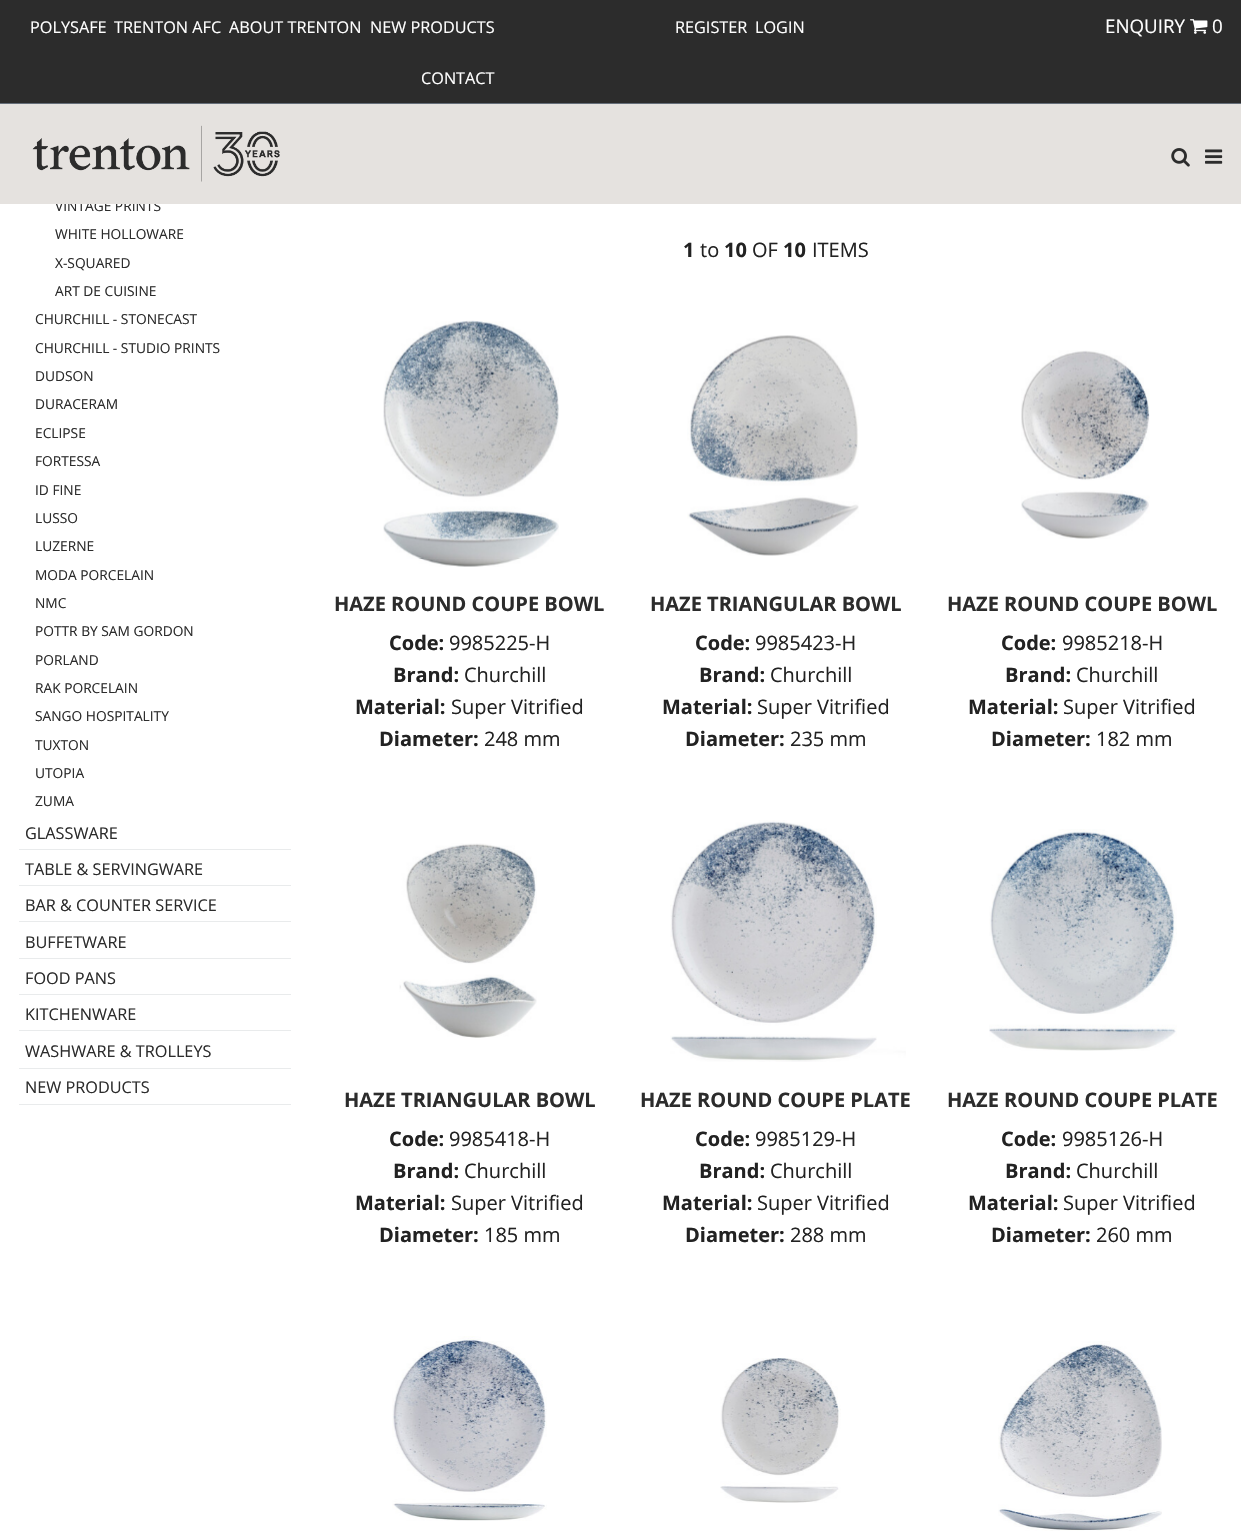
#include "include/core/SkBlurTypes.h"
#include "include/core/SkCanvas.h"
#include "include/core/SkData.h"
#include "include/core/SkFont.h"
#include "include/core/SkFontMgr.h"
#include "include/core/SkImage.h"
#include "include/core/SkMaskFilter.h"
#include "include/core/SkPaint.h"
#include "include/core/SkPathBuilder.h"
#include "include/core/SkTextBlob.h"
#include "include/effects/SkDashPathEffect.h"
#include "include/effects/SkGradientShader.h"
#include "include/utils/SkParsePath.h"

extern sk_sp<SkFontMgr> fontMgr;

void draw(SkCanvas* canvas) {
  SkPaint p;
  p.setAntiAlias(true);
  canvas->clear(SK_ColorWHITE);
  p.setColor(SkColorSetRGB(44, 44, 44));
  canvas->drawRect(SkRect::MakeLTRB(0, 0, 1241, 103), p);
  p.setColor(SkColorSetRGB(101, 110, 121));
  canvas->drawRect(SkRect::MakeLTRB(0, 103, 1241, 104), p);
  canvas->drawImageRect(SkImages::DeferredFromEncodedData(SkData::MakeFromFileName("images/1.png")), SkRect::MakeLTRB(1190, 19, 1208, 34), SkSamplingOptions());
  p.setColor(SkColorSetRGB(233, 235, 236));
  canvas->drawRect(SkRect::MakeLTRB(19, 849, 291, 850), p);
  canvas->drawRect(SkRect::MakeLTRB(19, 885, 291, 886), p);
  canvas->drawRect(SkRect::MakeLTRB(19, 921, 291, 922), p);
  canvas->drawRect(SkRect::MakeLTRB(19, 958, 291, 959), p);
  canvas->drawRect(SkRect::MakeLTRB(19, 994, 291, 995), p);
  canvas->drawRect(SkRect::MakeLTRB(19, 1030, 291, 1031), p);
  canvas->drawRect(SkRect::MakeLTRB(19, 1068, 291, 1069), p);
  canvas->drawRect(SkRect::MakeLTRB(19, 1104, 291, 1105), p);
  canvas->drawImageRect(SkImages::DeferredFromEncodedData(SkData::MakeFromFileName("images/5.png")), SkRect::MakeLTRB(383, 320, 559, 567), SkSamplingOptions());
  canvas->drawImageRect(SkImages::DeferredFromEncodedData(SkData::MakeFromFileName("images/6.png")), SkRect::MakeLTRB(687, 335, 859, 556), SkSamplingOptions());
  canvas->drawImageRect(SkImages::DeferredFromEncodedData(SkData::MakeFromFileName("images/7.png")), SkRect::MakeLTRB(1021, 350, 1150, 539), SkSamplingOptions());
  canvas->drawImageRect(SkImages::DeferredFromEncodedData(SkData::MakeFromFileName("images/8.png")), SkRect::MakeLTRB(399, 843, 537, 1038), SkSamplingOptions());
  canvas->drawImageRect(SkImages::DeferredFromEncodedData(SkData::MakeFromFileName("images/9.png")), SkRect::MakeLTRB(670, 820, 906, 1062), SkSamplingOptions());
  canvas->drawImageRect(SkImages::DeferredFromEncodedData(SkData::MakeFromFileName("images/10.png")), SkRect::MakeLTRB(989, 829, 1177, 1051), SkSamplingOptions());
  canvas->drawImageRect(SkImages::DeferredFromEncodedData(SkData::MakeFromFileName("images/11.png")), SkRect::MakeLTRB(392, 1336, 547, 1521), SkSamplingOptions());
  canvas->drawImageRect(SkImages::DeferredFromEncodedData(SkData::MakeFromFileName("images/12.png")), SkRect::MakeLTRB(720, 1358, 841, 1503), SkSamplingOptions());
  canvas->drawImageRect(SkImages::DeferredFromEncodedData(SkData::MakeFromFileName("images/13.png")), SkRect::MakeLTRB(998, 1341, 1162, 1531), SkSamplingOptions());
  SkFont font1(fontMgr->matchFamilyStyle("Open Sans", SkFontStyle::Normal()), 16.25f);
  font1.setSubpixel(true);
  p.setColor(SK_ColorWHITE);
  canvas->drawString("POLYSAFE", 30, 33, font1, p);
  canvas->drawString("TRENTON AFC", 114, 33, font1, p);
  canvas->drawString("ABOUT TRENTON", 229, 33, font1, p);
  canvas->drawString("NEW PRODUCTS", 370, 33, font1, p);
  canvas->drawString("CONTACT", 421, 84, font1, p);
  canvas->drawString("REGISTER", 675, 33, font1, p);
  canvas->drawString("LOGIN", 755, 33, font1, p);
  SkFont font2(fontMgr->matchFamilyStyle("Open Sans", SkFontStyle::Normal()), 18.75f);
  font2.setSubpixel(true);
  canvas->drawString("ENQUIRY", 1105, 33, font2, p);
  canvas->drawString("0", 1212, 33, font2, p);
  SkFont font3(fontMgr->matchFamilyStyle("Open Sans", SkFontStyle::Normal()), 13.75f);
  font3.setSubpixel(true);
  p.setColor(SkColorSetRGB(44, 44, 44));
  canvas->drawString("VINTAGE PRINTS", 55, 211, font3, p);
  p.setColor(SkColorSetRGB(229, 226, 223));
  canvas->drawRect(SkRect::MakeLTRB(0, 104, 1241, 204), p);
  canvas->drawImageRect(SkImages::DeferredFromEncodedData(SkData::MakeFromFileName("images/4.png")), SkRect::MakeLTRB(1205, 149, 1223, 164), SkSamplingOptions());
  canvas->drawImageRect(SkImages::DeferredFromEncodedData(SkData::MakeFromFileName("images/3.png")), SkRect::MakeLTRB(1171, 148, 1190, 167), SkSamplingOptions());
  canvas->drawImageRect(SkImages::DeferredFromEncodedData(SkData::MakeFromFileName("images/2.png")), SkRect::MakeLTRB(32, 125, 280, 182), SkSamplingOptions());
  p.setColor(SkColorSetRGB(44, 44, 44));
  canvas->drawString("WHITE HOLLOWARE", 55, 239, font3, p);
  canvas->drawString("X-SQUARED", 55, 268, font3, p);
  canvas->drawString("ART DE CUISINE", 55, 296, font3, p);
  canvas->drawString("CHURCHILL - STONECAST", 35, 324, font3, p);
  canvas->drawString("CHURCHILL - STUDIO PRINTS", 35, 353, font3, p);
  canvas->drawString("DUDSON", 35, 381, font3, p);
  canvas->drawString("DURACERAM", 35, 409, font3, p);
  canvas->drawString("ECLIPSE", 35, 438, font3, p);
  canvas->drawString("FORTESSA", 35, 466, font3, p);
  canvas->drawString("ID FINE", 35, 495, font3, p);
  canvas->drawString("LUSSO", 35, 523, font3, p);
  canvas->drawString("LUZERNE", 35, 551, font3, p);
  canvas->drawString("MODA PORCELAIN", 35, 580, font3, p);
  canvas->drawString("NMC", 35, 608, font3, p);
  canvas->drawString("POTTR BY SAM GORDON", 35, 636, font3, p);
  canvas->drawString("PORLAND", 35, 665, font3, p);
  canvas->drawString("RAK PORCELAIN", 35, 693, font3, p);
  canvas->drawString("SANGO HOSPITALITY", 35, 721, font3, p);
  canvas->drawString("TUXTON", 35, 750, font3, p);
  canvas->drawString("UTOPIA", 35, 778, font3, p);
  canvas->drawString("ZUMA", 35, 806, font3, p);
  canvas->drawString("GLASSWARE", 25, 839, font1, p);
  canvas->drawString("TABLE & SERVINGWARE", 25, 875, font1, p);
  canvas->drawString("BAR & COUNTER SERVICE", 25, 911, font1, p);
  canvas->drawString("BUFFETWARE", 25, 948, font1, p);
  canvas->drawString("FOOD PANS", 25, 984, font1, p);
  canvas->drawString("KITCHENWARE", 25, 1020, font1, p);
  canvas->drawString("WASHWARE & TROLLEYS", 25, 1057, font1, p);
  canvas->drawString("NEW PRODUCTS", 25, 1093, font1, p);
  SkFont font4(fontMgr->matchFamilyStyle("Open Sans", SkFontStyle::Bold()), 20);
  font4.setSubpixel(true);
  p.setColor(SkColorSetRGB(34, 34, 34));
  canvas->drawString("1", 683, 257, font4, p);
  SkFont font5(fontMgr->matchFamilyStyle("Open Sans", SkFontStyle::Normal()), 20);
  font5.setSubpixel(true);
  canvas->drawString("to", 700, 257, font5, p);
  canvas->drawString("10", 724, 257, font4, p);
  canvas->drawString("OF", 752, 257, font5, p);
  canvas->drawString("10", 783, 257, font4, p);
  canvas->drawString("ITEMS", 812, 257, font5, p);
  p.setColor(SkColorSetRGB(44, 44, 44));
  canvas->drawString("HAZE ROUND COUPE BOWL", 334, 611, font4, p);
  p.setColor(SkColorSetRGB(34, 34, 34));
  canvas->drawString("Code:", 389, 650, font4, p);
  canvas->drawString("9985225-H", 449, 650, font5, p);
  canvas->drawString("Brand:", 393, 682, font4, p);
  canvas->drawString("Churchill", 464, 682, font5, p);
  canvas->drawString("Material:", 355, 714, font4, p);
  canvas->drawString("Super Vitrified", 451, 714, font5, p);
  canvas->drawString("Diameter:", 379, 746, font4, p);
  canvas->drawString("248 mm", 484, 746, font5, p);
  p.setColor(SkColorSetRGB(44, 44, 44));
  canvas->drawString("HAZE TRIANGULAR BOWL", 650, 611, font4, p);
  p.setColor(SkColorSetRGB(34, 34, 34));
  canvas->drawString("Code:", 695, 650, font4, p);
  canvas->drawString("9985423-H", 755, 650, font5, p);
  canvas->drawString("Brand:", 699, 682, font4, p);
  canvas->drawString("Churchill", 770, 682, font5, p);
  canvas->drawString("Material:", 662, 714, font4, p);
  canvas->drawString("Super Vitrified", 757, 714, font5, p);
  canvas->drawString("Diameter:", 685, 746, font4, p);
  canvas->drawString("235 mm", 790, 746, font5, p);
  p.setColor(SkColorSetRGB(44, 44, 44));
  canvas->drawString("HAZE ROUND COUPE BOWL", 947, 611, font4, p);
  p.setColor(SkColorSetRGB(34, 34, 34));
  canvas->drawString("Code:", 1001, 650, font4, p);
  canvas->drawString("9985218-H", 1062, 650, font5, p);
  canvas->drawString("Brand:", 1005, 682, font4, p);
  canvas->drawString("Churchill", 1076, 682, font5, p);
  canvas->drawString("Material:", 968, 714, font4, p);
  canvas->drawString("Super Vitrified", 1063, 714, font5, p);
  canvas->drawString("Diameter:", 991, 746, font4, p);
  canvas->drawString("182 mm", 1096, 746, font5, p);
  p.setColor(SkColorSetRGB(44, 44, 44));
  canvas->drawString("HAZE TRIANGULAR BOWL", 344, 1107, font4, p);
  p.setColor(SkColorSetRGB(34, 34, 34));
  canvas->drawString("Code:", 389, 1146, font4, p);
  canvas->drawString("9985418-H", 449, 1146, font5, p);
  canvas->drawString("Brand:", 393, 1178, font4, p);
  canvas->drawString("Churchill", 464, 1178, font5, p);
  canvas->drawString("Material:", 355, 1210, font4, p);
  canvas->drawString("Super Vitrified", 451, 1210, font5, p);
  canvas->drawString("Diameter:", 379, 1242, font4, p);
  canvas->drawString("185 mm", 484, 1242, font5, p);
  p.setColor(SkColorSetRGB(44, 44, 44));
  canvas->drawString("HAZE ROUND COUPE PLATE", 640, 1107, font4, p);
  p.setColor(SkColorSetRGB(34, 34, 34));
  canvas->drawString("Code:", 695, 1146, font4, p);
  canvas->drawString("9985129-H", 755, 1146, font5, p);
  canvas->drawString("Brand:", 699, 1178, font4, p);
  canvas->drawString("Churchill", 770, 1178, font5, p);
  canvas->drawString("Material:", 662, 1210, font4, p);
  canvas->drawString("Super Vitrified", 757, 1210, font5, p);
  canvas->drawString("Diameter:", 685, 1242, font4, p);
  canvas->drawString("288 mm", 790, 1242, font5, p);
  p.setColor(SkColorSetRGB(44, 44, 44));
  canvas->drawString("HAZE ROUND COUPE PLATE", 947, 1107, font4, p);
  p.setColor(SkColorSetRGB(34, 34, 34));
  canvas->drawString("Code:", 1001, 1146, font4, p);
  canvas->drawString("9985126-H", 1062, 1146, font5, p);
  canvas->drawString("Brand:", 1005, 1178, font4, p);
  canvas->drawString("Churchill", 1076, 1178, font5, p);
  canvas->drawString("Material:", 968, 1210, font4, p);
  canvas->drawString("Super Vitrified", 1063, 1210, font5, p);
  canvas->drawString("Diameter:", 991, 1242, font4, p);
  canvas->drawString("260 mm", 1096, 1242, font5, p);
}
